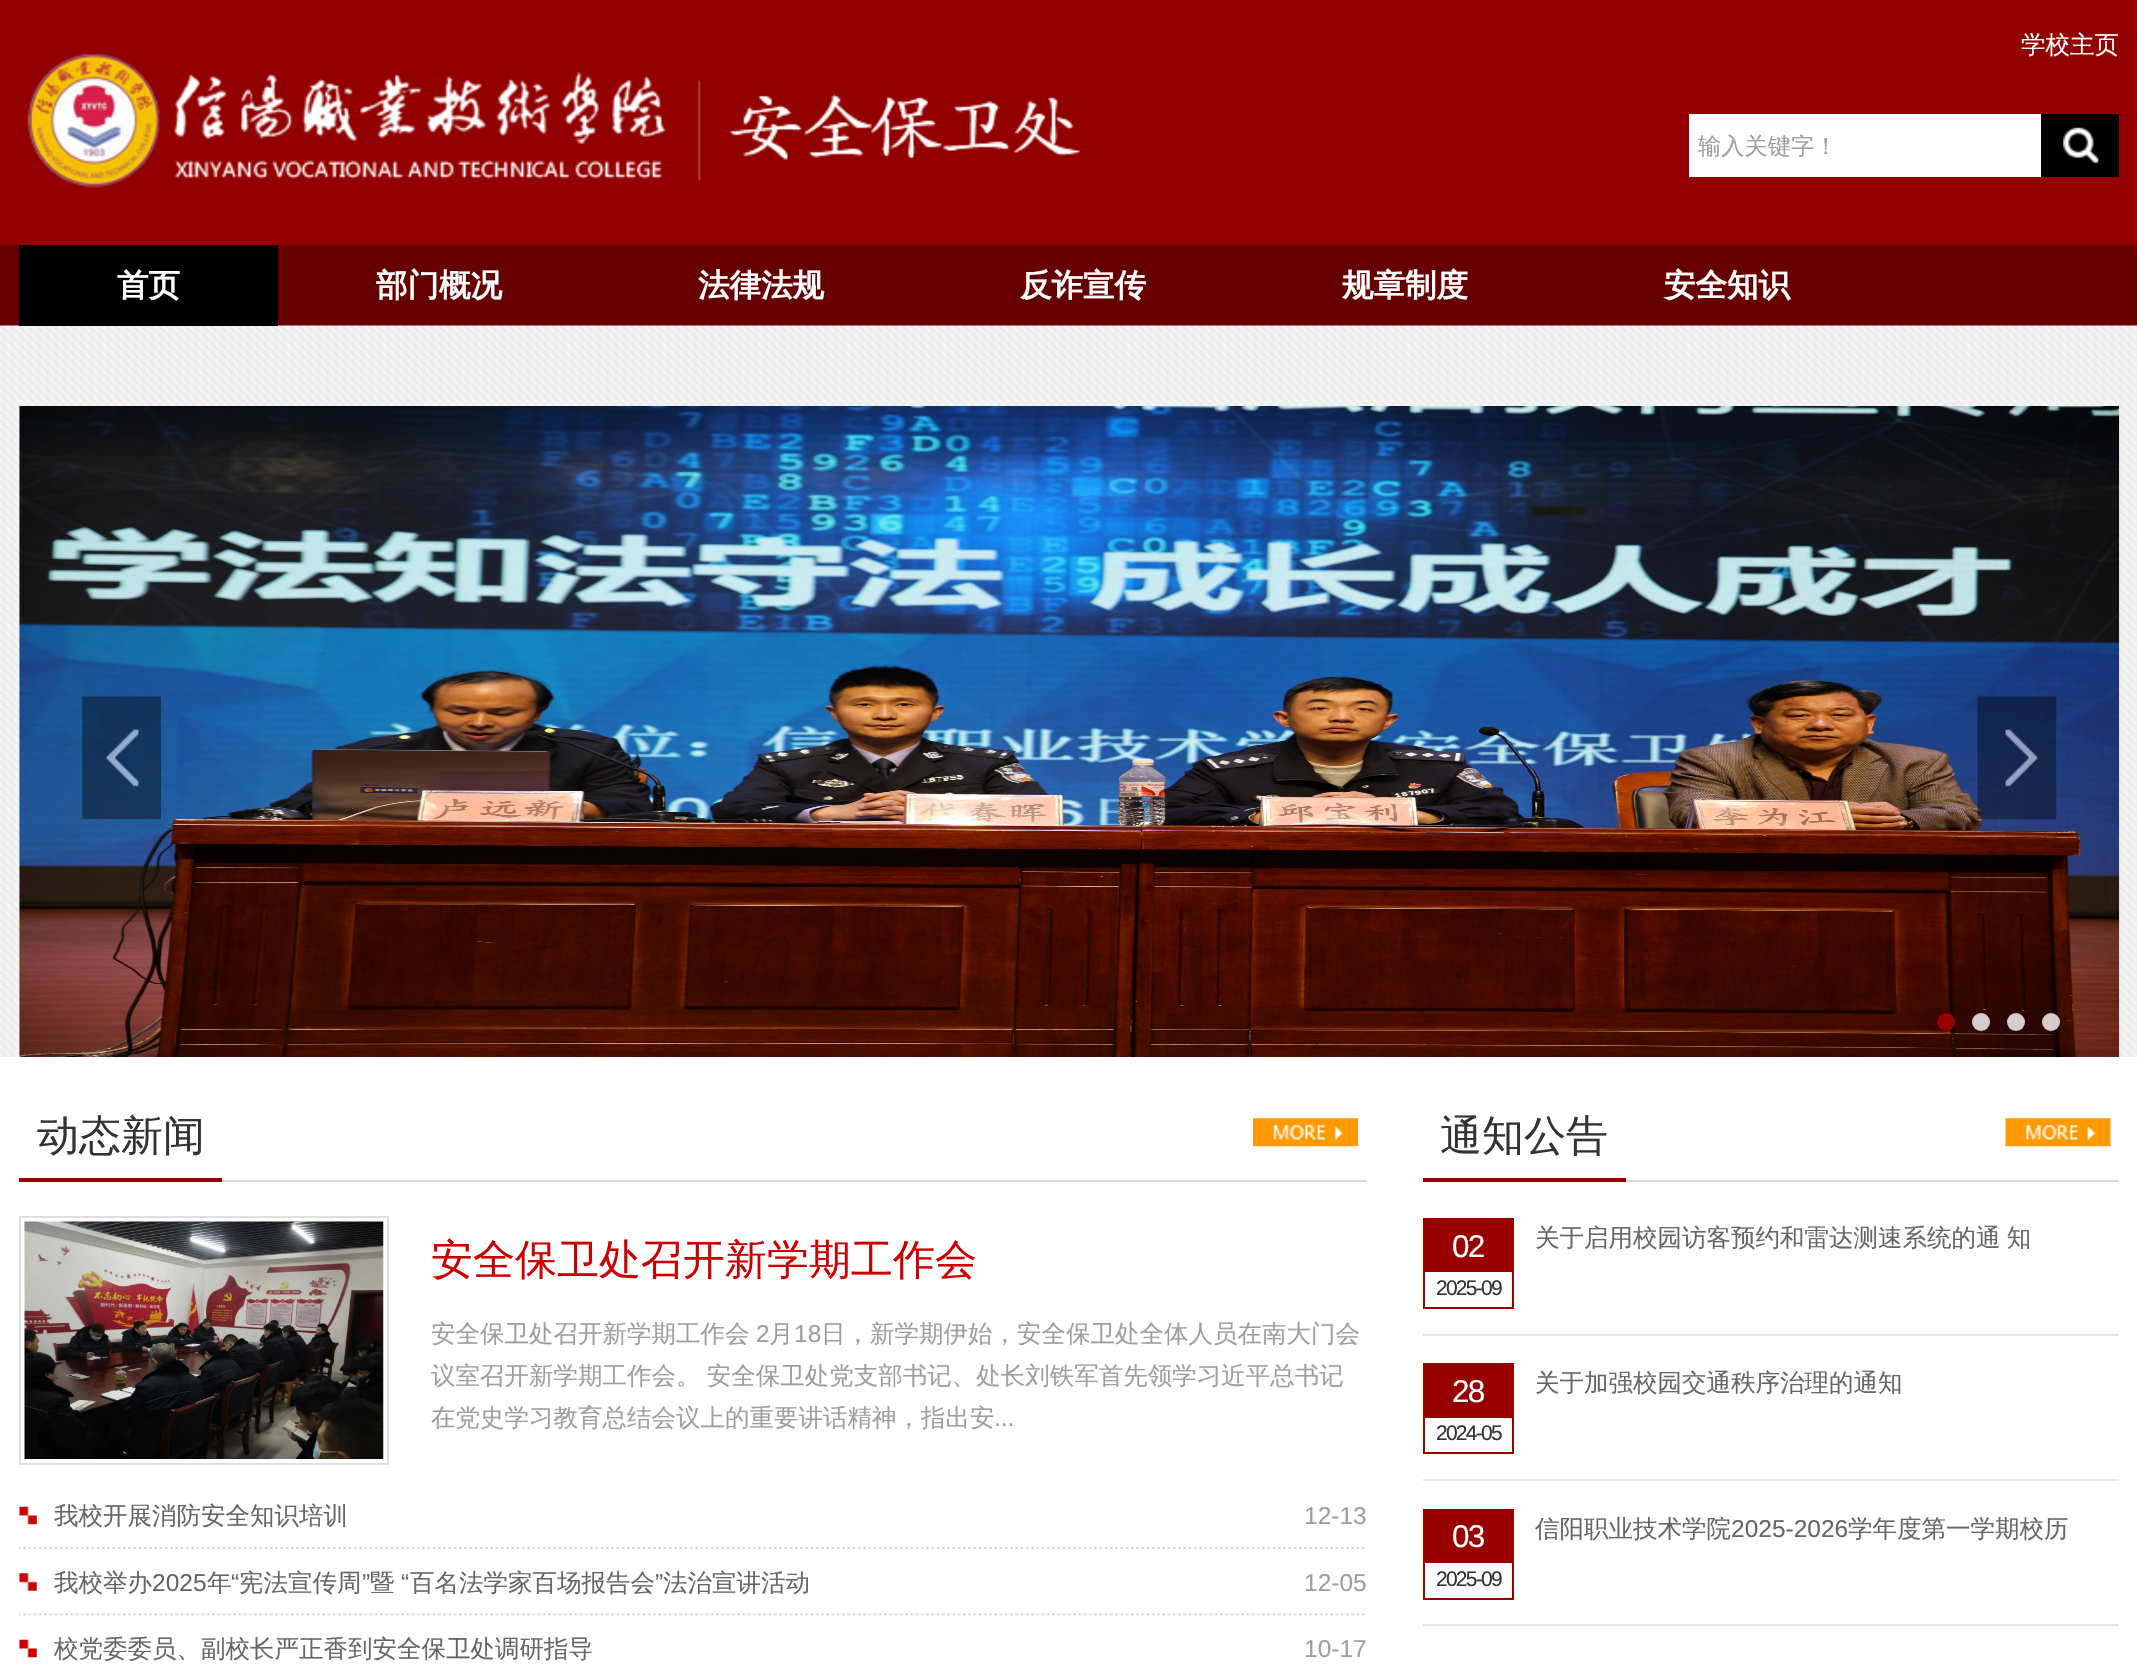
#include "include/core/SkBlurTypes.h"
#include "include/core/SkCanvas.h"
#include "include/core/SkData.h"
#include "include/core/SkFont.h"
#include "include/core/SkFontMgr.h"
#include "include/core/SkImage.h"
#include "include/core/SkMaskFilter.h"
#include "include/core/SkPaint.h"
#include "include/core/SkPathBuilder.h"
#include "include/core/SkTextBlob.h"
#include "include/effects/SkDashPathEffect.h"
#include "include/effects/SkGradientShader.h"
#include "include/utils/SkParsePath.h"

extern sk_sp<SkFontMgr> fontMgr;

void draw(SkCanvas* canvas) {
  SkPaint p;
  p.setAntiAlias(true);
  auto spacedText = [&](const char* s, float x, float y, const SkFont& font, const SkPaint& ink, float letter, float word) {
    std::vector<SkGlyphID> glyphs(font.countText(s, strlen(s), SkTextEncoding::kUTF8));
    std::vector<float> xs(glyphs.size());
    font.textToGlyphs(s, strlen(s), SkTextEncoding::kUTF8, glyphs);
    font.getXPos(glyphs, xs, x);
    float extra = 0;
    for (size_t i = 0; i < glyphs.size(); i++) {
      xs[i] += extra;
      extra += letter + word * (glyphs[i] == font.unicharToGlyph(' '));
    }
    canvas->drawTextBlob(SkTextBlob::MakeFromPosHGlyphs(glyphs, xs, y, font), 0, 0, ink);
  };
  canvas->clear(SK_ColorWHITE);
  p.setColor(SkColorSetRGB(146, 0, 0));
  canvas->drawRect(SkRect::MakeLTRB(0, 0, 2137, 245), p);
  canvas->drawImageRect(SkImages::DeferredFromEncodedData(SkData::MakeFromFileName("images/1.png")), SkRect::MakeLTRB(27, 53, 1081, 188), SkSamplingOptions());
  p.setColor(SK_ColorWHITE);
  canvas->drawRect(SkRect::MakeLTRB(1689, 114, 2041, 177), p);
  p.setColor(SK_ColorBLACK);
  canvas->drawRect(SkRect::MakeLTRB(2041, 114, 2119, 177), p);
  canvas->drawImageRect(SkImages::DeferredFromEncodedData(SkData::MakeFromFileName("images/2.png")), SkRect::MakeLTRB(2063, 127, 2099, 163), SkSamplingOptions());
  p.setColor(SkColorSetRGB(102, 0, 0));
  canvas->drawRect(SkRect::MakeLTRB(0, 245, 2137, 326), p);
  canvas->drawImageRect(SkImages::DeferredFromEncodedData(SkData::MakeFromFileName("images/3.png")), SkRect::MakeLTRB(0, 325, 2137, 1057), SkSamplingOptions());
  p.setColor(SK_ColorBLACK);
  canvas->drawRect(SkRect::MakeLTRB(19, 245, 278, 326), p);
  canvas->drawImageRect(SkImages::DeferredFromEncodedData(SkData::MakeFromFileName("images/4.png")), SkRect::MakeLTRB(19, 406, 2120, 1057), SkSamplingOptions());
  canvas->drawImageRect(SkImages::DeferredFromEncodedData(SkData::MakeFromFileName("images/5.png")), SkRect::MakeLTRB(82, 696, 161, 819), SkSamplingOptions());
  canvas->drawImageRect(SkImages::DeferredFromEncodedData(SkData::MakeFromFileName("images/6.png")), SkRect::MakeLTRB(1977, 696, 2057, 819), SkSamplingOptions());
  p.setColor(SkColorSetRGB(152, 0, 0));
  canvas->drawCircle(1946, 1022, 9, p);
  p.setColor(SkColorSetARGB(204, 255, 255, 255));
  canvas->drawCircle(1981, 1022, 9, p);
  canvas->drawCircle(2016, 1022, 9, p);
  canvas->drawCircle(2051, 1022, 9, p);
  p.setColor(SkColorSetRGB(218, 218, 218));
  canvas->drawRect(SkRect::MakeLTRB(222, 1180, 1367, 1182), p);
  p.setColor(SkColorSetRGB(153, 0, 0));
  canvas->drawRect(SkRect::MakeLTRB(19, 1178, 222, 1182), p);
  canvas->drawImageRect(SkImages::DeferredFromEncodedData(SkData::MakeFromFileName("images/7.png")), SkRect::MakeLTRB(1253, 1118, 1358, 1147), SkSamplingOptions());
  p.setStyle(SkPaint::kStroke_Style);
  p.setStrokeWidth(2);
  p.setColor(SkColorSetRGB(223, 223, 223));
  canvas->drawRect(SkRect::MakeLTRB(20, 1217, 388, 1464), p);
  canvas->drawImageRect(SkImages::DeferredFromEncodedData(SkData::MakeFromFileName("images/8.png")), SkRect::MakeLTRB(24, 1221, 384, 1459), SkSamplingOptions());
  canvas->drawImageRect(SkImages::DeferredFromEncodedData(SkData::MakeFromFileName("images/9.png")), SkRect::MakeLTRB(19, 1547, 1365, 1549), SkSamplingOptions());
  canvas->drawImageRect(SkImages::DeferredFromEncodedData(SkData::MakeFromFileName("images/10.png")), SkRect::MakeLTRB(19, 1506, 37, 1525), SkSamplingOptions());
  canvas->drawImageRect(SkImages::DeferredFromEncodedData(SkData::MakeFromFileName("images/11.png")), SkRect::MakeLTRB(19, 1613, 1365, 1616), SkSamplingOptions());
  canvas->drawImageRect(SkImages::DeferredFromEncodedData(SkData::MakeFromFileName("images/12.png")), SkRect::MakeLTRB(19, 1573, 37, 1591), SkSamplingOptions());
  canvas->drawImageRect(SkImages::DeferredFromEncodedData(SkData::MakeFromFileName("images/10.png")), SkRect::MakeLTRB(19, 1639, 37, 1658), SkSamplingOptions());
  p.setStyle(SkPaint::kFill_Style);
  p.setColor(SkColorSetRGB(218, 218, 218));
  canvas->drawRect(SkRect::MakeLTRB(1626, 1180, 2119, 1182), p);
  p.setColor(SkColorSetRGB(153, 0, 0));
  canvas->drawRect(SkRect::MakeLTRB(1423, 1178, 1626, 1182), p);
  canvas->drawImageRect(SkImages::DeferredFromEncodedData(SkData::MakeFromFileName("images/13.png")), SkRect::MakeLTRB(2005, 1118, 2111, 1147), SkSamplingOptions());
  p.setColor(SkColorSetRGB(228, 228, 228));
  canvas->drawRect(SkRect::MakeLTRB(1423, 1334, 2119, 1336), p);
  p.setStyle(SkPaint::kStroke_Style);
  p.setColor(SkColorSetRGB(153, 0, 0));
  canvas->drawRect(SkRect::MakeLTRB(1424, 1219, 1513, 1308), p);
  p.setStyle(SkPaint::kFill_Style);
  canvas->drawRect(SkRect::MakeLTRB(1425, 1220, 1512, 1272), p);
  p.setColor(SkColorSetRGB(228, 228, 228));
  canvas->drawRect(SkRect::MakeLTRB(1423, 1479, 2119, 1481), p);
  p.setStyle(SkPaint::kStroke_Style);
  p.setColor(SkColorSetRGB(153, 0, 0));
  canvas->drawRect(SkRect::MakeLTRB(1424, 1364, 1513, 1453), p);
  p.setStyle(SkPaint::kFill_Style);
  canvas->drawRect(SkRect::MakeLTRB(1425, 1365, 1512, 1418), p);
  p.setColor(SkColorSetRGB(228, 228, 228));
  canvas->drawRect(SkRect::MakeLTRB(1423, 1624, 2119, 1626), p);
  p.setStyle(SkPaint::kStroke_Style);
  p.setColor(SkColorSetRGB(153, 0, 0));
  canvas->drawRect(SkRect::MakeLTRB(1424, 1510, 1513, 1599), p);
  p.setStyle(SkPaint::kFill_Style);
  canvas->drawRect(SkRect::MakeLTRB(1425, 1511, 1512, 1563), p);
  SkFont font1(fontMgr->matchFamilyStyle("WenQuanYi Zen Hei", SkFontStyle(500, SkFontStyle::kNormal_Width, SkFontStyle::kUpright_Slant)), 24.5f);
  font1.setSubpixel(true);
  p.setColor(SK_ColorWHITE);
  canvas->drawString("学校主页", 2021, 53, font1, p);
  canvas->save();
  canvas->clipRect(SkRect::MakeLTRB(1698, 116, 2049, 177));
  SkFont font2(fontMgr->matchFamilyStyle("WenQuanYi Zen Hei", SkFontStyle(500, SkFontStyle::kNormal_Width, SkFontStyle::kUpright_Slant)), 23.25f);
  font2.setSubpixel(true);
  p.setColor(SkColorSetRGB(158, 158, 158));
  canvas->drawString("输入关键字！", 1698, 154, font2, p);
  canvas->restore();
  SkFont font3(fontMgr->matchFamilyStyle("WenQuanYi Zen Hei", SkFontStyle::Bold()), 31.5f);
  font3.setSubpixel(true);
  p.setColor(SK_ColorWHITE);
  canvas->drawString("首页", 117, 296, font3, p);
  canvas->drawString("部门概况", 376, 296, font3, p);
  canvas->drawString("法律法规", 698, 296, font3, p);
  canvas->drawString("反诈宣传", 1020, 296, font3, p);
  canvas->drawString("规章制度", 1342, 296, font3, p);
  canvas->drawString("安全知识", 1664, 296, font3, p);
  SkFont font4(fontMgr->matchFamilyStyle("WenQuanYi Zen Hei", SkFontStyle(500, SkFontStyle::kNormal_Width, SkFontStyle::kUpright_Slant)), 42);
  font4.setSubpixel(true);
  p.setColor(SkColorSetRGB(51, 51, 51));
  canvas->drawString("动态新闻", 37, 1150, font4, p);
  p.setColor(SkColorSetRGB(204, 0, 0));
  canvas->drawString("安全保卫处召开新学期工作会", 431, 1274, font4, p);
  p.setColor(SkColorSetRGB(158, 158, 158));
  canvas->drawString("安全保卫处召开新学期工作会", 431, 1342, font1, p);
  SkFont font5(fontMgr->matchFamilyStyle("Liberation Sans", SkFontStyle::Normal()), 24.5f);
  font5.setSubpixel(true);
  canvas->drawString("2", 756, 1342, font5, p);
  canvas->drawString("月", 769, 1342, font1, p);
  canvas->drawString("18", 794, 1342, font5, p);
  canvas->drawString("日，新学期伊始，安全保卫处全体人员在南大门会", 821, 1342, font1, p);
  spacedText("议室召开新学期工作会。 安全保卫处党支部书记、处长刘铁军首先领学习近平总书记", 431, 1384, font1, p, 0, -1);
  canvas->drawString("在党史学习教育总结会议上的重要讲话精神，指出安", 431, 1426, font1, p);
  canvas->drawString("...", 994, 1426, font5, p);
  p.setColor(SkColorSetRGB(102, 102, 102));
  canvas->drawString("我校开展消防安全知识培训", 54, 1524, font1, p);
  p.setColor(SkColorSetRGB(158, 158, 158));
  canvas->drawString("12-13", 1304, 1524, font5, p);
  p.setColor(SkColorSetRGB(102, 102, 102));
  canvas->drawString("我校举办", 54, 1591, font1, p);
  canvas->drawString("2025", 152, 1591, font5, p);
  canvas->drawString("年", 207, 1591, font1, p);
  canvas->drawString("“", 231, 1591, font5, p);
  canvas->drawString("宪法宣传周", 239, 1591, font1, p);
  canvas->drawString("”", 362, 1591, font5, p);
  canvas->drawString("暨", 370, 1591, font1, p);
  canvas->drawString("“", 401, 1591, font5, p);
  canvas->drawString("百名法学家百场报告会", 410, 1591, font1, p);
  canvas->drawString("”", 655, 1591, font5, p);
  canvas->drawString("法治宣讲活动", 663, 1591, font1, p);
  p.setColor(SkColorSetRGB(158, 158, 158));
  canvas->drawString("12-05", 1304, 1591, font5, p);
  p.setColor(SkColorSetRGB(102, 102, 102));
  canvas->drawString("校党委委员、副校长严正香到安全保卫处调研指导", 54, 1657, font1, p);
  p.setColor(SkColorSetRGB(158, 158, 158));
  canvas->drawString("10-17", 1304, 1657, font5, p);
  p.setColor(SkColorSetRGB(51, 51, 51));
  canvas->drawString("通知公告", 1440, 1150, font4, p);
  SkFont font6(fontMgr->matchFamilyStyle("Liberation Sans", SkFontStyle::Normal()), 31.5f);
  font6.setSubpixel(true);
  p.setColor(SK_ColorWHITE);
  spacedText("02", 1452, 1257, font6, p, -1.75f, 0);
  SkFont font7(fontMgr->matchFamilyStyle("Liberation Sans", SkFontStyle::Normal()), 21);
  font7.setSubpixel(true);
  p.setColor(SkColorSetRGB(51, 51, 51));
  spacedText("2025-09", 1436, 1295, font7, p, -1.75f, 0);
  p.setColor(SkColorSetRGB(102, 102, 102));
  spacedText("关于启用校园访客预约和雷达测速系统的通 知", 1535, 1246, font1, p, 0, -1);
  p.setColor(SK_ColorWHITE);
  spacedText("28", 1452, 1402, font6, p, -1.75f, 0);
  p.setColor(SkColorSetRGB(51, 51, 51));
  spacedText("2024-05", 1436, 1440, font7, p, -1.75f, 0);
  p.setColor(SkColorSetRGB(102, 102, 102));
  canvas->drawString("关于加强校园交通秩序治理的通知", 1535, 1391, font1, p);
  p.setColor(SK_ColorWHITE);
  spacedText("03", 1452, 1547, font6, p, -1.75f, 0);
  p.setColor(SkColorSetRGB(51, 51, 51));
  spacedText("2025-09", 1436, 1586, font7, p, -1.75f, 0);
  p.setColor(SkColorSetRGB(102, 102, 102));
  canvas->drawString("信阳职业技术学院", 1535, 1537, font1, p);
  canvas->drawString("2025-2026", 1731, 1537, font5, p);
  canvas->drawString("学年度第一学期校历", 1848, 1537, font1, p);
}
